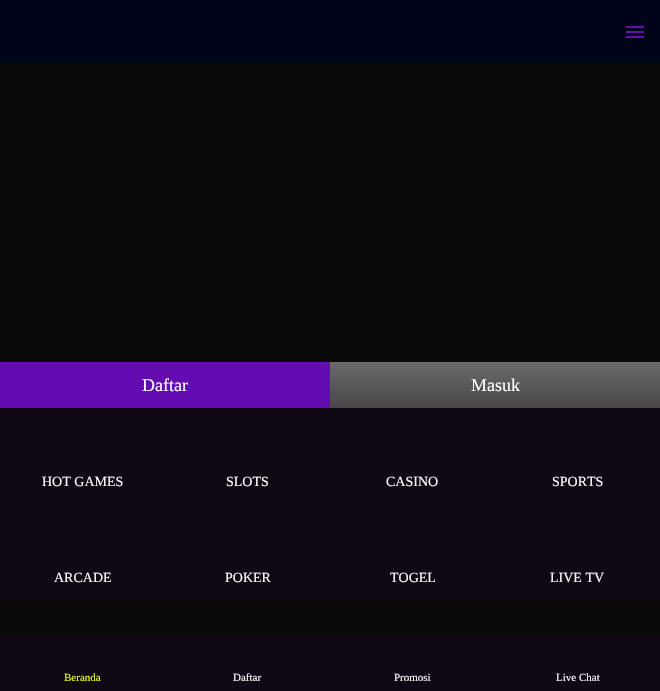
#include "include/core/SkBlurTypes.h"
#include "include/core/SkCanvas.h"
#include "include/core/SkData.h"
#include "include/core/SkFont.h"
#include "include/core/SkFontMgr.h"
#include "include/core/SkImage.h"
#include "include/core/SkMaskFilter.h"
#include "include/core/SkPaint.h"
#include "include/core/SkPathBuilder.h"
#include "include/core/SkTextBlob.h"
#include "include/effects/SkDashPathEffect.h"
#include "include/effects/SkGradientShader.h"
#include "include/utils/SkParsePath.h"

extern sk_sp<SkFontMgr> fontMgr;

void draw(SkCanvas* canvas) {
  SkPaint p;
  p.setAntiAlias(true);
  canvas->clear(SkColorSetRGB(10, 10, 10));
  p.setColor(SkColorSetRGB(0, 4, 24));
  canvas->drawRect(SkRect::MakeLTRB(0, 0, 660, 63), p);
  p.setColor(SkColorSetRGB(99, 12, 177));
  canvas->drawRect(SkRect::MakeLTRB(626, 31, 644, 33), p);
  canvas->drawRect(SkRect::MakeLTRB(626, 26, 644, 28), p);
  canvas->drawRect(SkRect::MakeLTRB(626, 36, 644, 38), p);
  canvas->drawRect(SkRect::MakeLTRB(0, 362, 330, 408), p);
  {
    const SkColor colors[] = {SkColorSetRGB(106, 106, 106), SkColorSetRGB(72, 72, 72)};
    const float stops[] = {0, 1};
    const SkPoint ends[] = {{495, 362}, {495, 408}};
    p.setShader(SkGradientShader::MakeLinear(ends, colors, stops, 2, SkTileMode::kClamp));
    p.setAlpha(255);
  }
  canvas->drawRect(SkRect::MakeLTRB(330, 362, 660, 408), p);
  p.setShader(nullptr);
  p.setColor(SkColorSetRGB(17, 8, 22));
  canvas->drawRect(SkRect::MakeLTRB(0, 408, 660, 600), p);
  canvas->drawRect(SkRect::MakeLTRB(0, 636, 660, 691), p);
  SkFont font1(fontMgr->matchFamilyStyle("Liberation Serif", SkFontStyle::Normal()), 18);
  font1.setSubpixel(true);
  p.setColor(SK_ColorWHITE);
  canvas->drawString("Daftar", 142, 391, font1, p);
  canvas->drawString("Masuk", 471, 391, font1, p);
  SkFont font2(fontMgr->matchFamilyStyle("Liberation Serif", SkFontStyle::Normal()), 14);
  font2.setSubpixel(true);
  canvas->drawString("HOT GAMES", 42, 486, font2, p);
  canvas->drawString("SLOTS", 226, 486, font2, p);
  canvas->drawString("CASINO", 386, 486, font2, p);
  canvas->drawString("SPORTS", 552, 486, font2, p);
  canvas->drawString("ARCADE", 54, 582, font2, p);
  canvas->drawString("POKER", 225, 582, font2, p);
  canvas->drawString("TOGEL", 390, 582, font2, p);
  canvas->drawString("LIVE TV", 550, 582, font2, p);
  SkFont font3(fontMgr->matchFamilyStyle("Liberation Serif", SkFontStyle::Normal()), 11);
  font3.setSubpixel(true);
  p.setColor(SkColorSetRGB(228, 255, 35));
  canvas->drawString("Beranda", 64, 681, font3, p);
  p.setColor(SK_ColorWHITE);
  canvas->drawString("Daftar", 233, 681, font3, p);
  canvas->drawString("Promosi", 394, 681, font3, p);
  canvas->drawString("Live Chat", 556, 681, font3, p);
}
